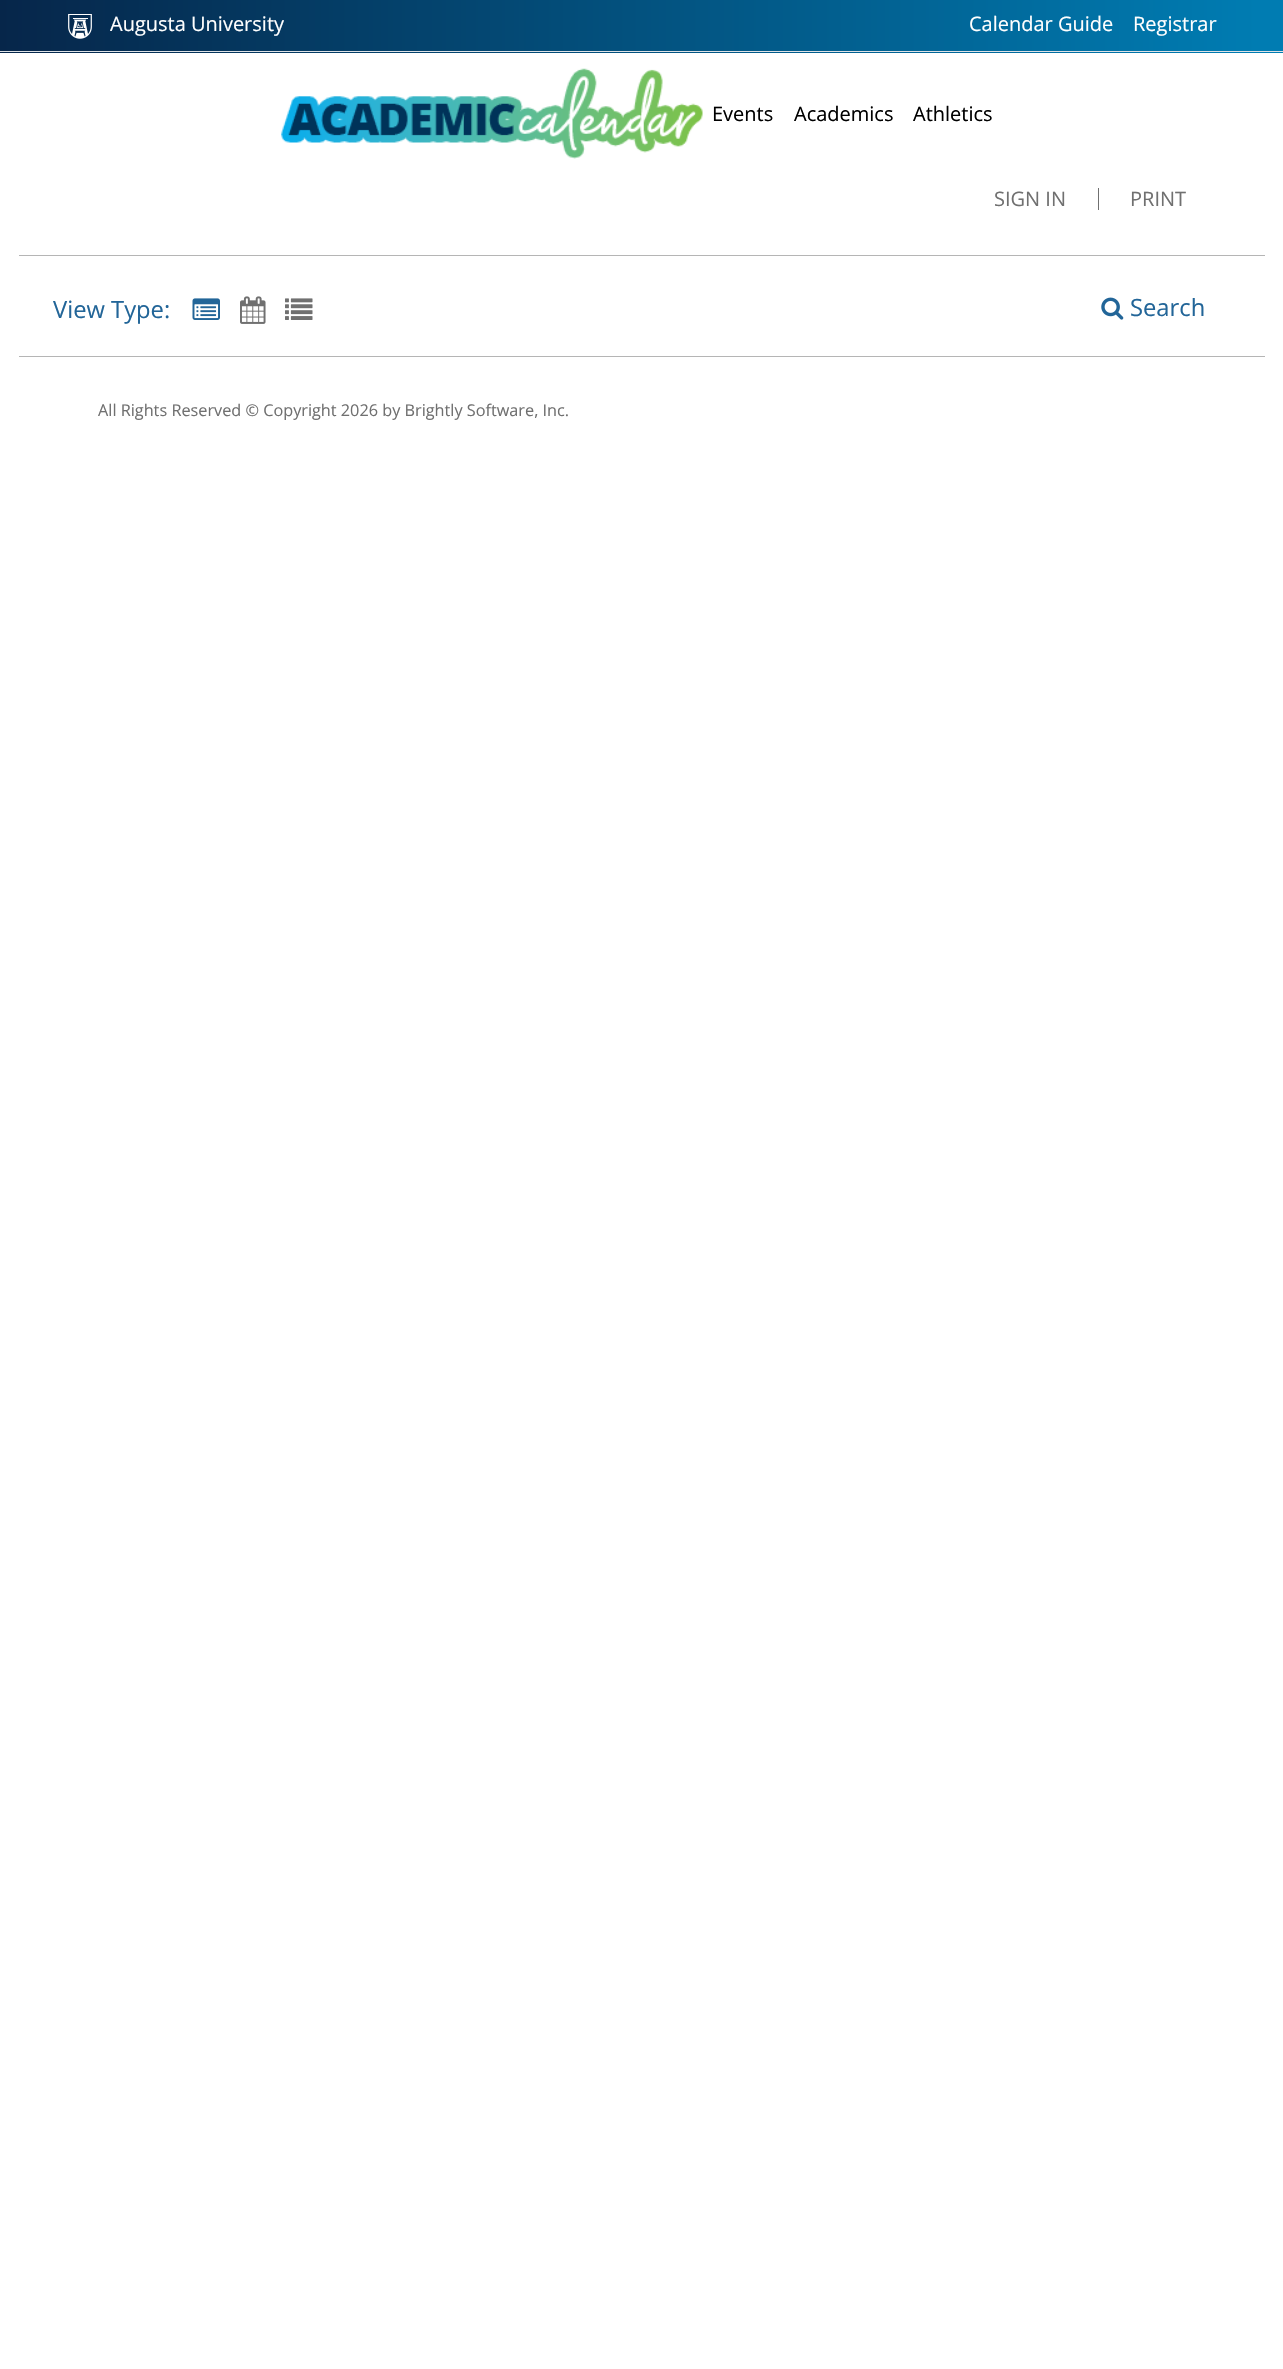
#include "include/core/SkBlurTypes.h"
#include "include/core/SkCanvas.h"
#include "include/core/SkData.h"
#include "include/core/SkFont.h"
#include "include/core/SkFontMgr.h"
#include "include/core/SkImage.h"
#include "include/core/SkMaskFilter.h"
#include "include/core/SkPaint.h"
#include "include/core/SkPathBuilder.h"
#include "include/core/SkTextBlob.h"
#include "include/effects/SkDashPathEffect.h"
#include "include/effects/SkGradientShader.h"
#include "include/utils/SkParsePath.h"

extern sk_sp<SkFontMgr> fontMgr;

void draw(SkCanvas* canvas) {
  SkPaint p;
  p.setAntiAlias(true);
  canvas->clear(SK_ColorWHITE);
  {
    const SkColor colors[] = {SkColorSetRGB(6, 38, 74), SkColorSetRGB(0, 124, 178)};
    const float stops[] = {0, 0.98f};
    const SkPoint ends[] = {{0, 26}, {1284, 26}};
    p.setShader(SkGradientShader::MakeLinear(ends, colors, stops, 2, SkTileMode::kClamp));
    p.setAlpha(255);
  }
  canvas->drawRect(SkRect::MakeLTRB(0, 0, 1283, 53), p);
  p.setShader(nullptr);
  p.setColor(SkColorSetRGB(222, 226, 230));
  canvas->drawRect(SkRect::MakeLTRB(0, 51, 1283, 52), p);
  canvas->drawImageRect(SkImages::DeferredFromEncodedData(SkData::MakeFromFileName("images/1.png")), SkRect::MakeLTRB(68, 14, 92, 39), SkSamplingOptions());
  canvas->drawImageRect(SkImages::DeferredFromEncodedData(SkData::MakeFromFileName("images/2.png")), SkRect::MakeLTRB(281, 68, 703, 159), SkSamplingOptions());
  p.setColor(SkColorSetRGB(112, 112, 112));
  canvas->drawRect(SkRect::MakeLTRB(1098, 188, 1099, 210), p);
  p.setColor(SkColorSetRGB(181, 181, 181));
  canvas->drawRect(SkRect::MakeLTRB(19, 255, 1265, 256), p);
  canvas->drawRect(SkRect::MakeLTRB(19, 356, 1265, 357), p);
  canvas->drawImageRect(SkImages::DeferredFromEncodedData(SkData::MakeFromFileName("images/3.png")), SkRect::MakeLTRB(192, 298, 220, 320), SkSamplingOptions());
  canvas->drawImageRect(SkImages::DeferredFromEncodedData(SkData::MakeFromFileName("images/4.png")), SkRect::MakeLTRB(240, 296, 266, 324), SkSamplingOptions());
  canvas->drawImageRect(SkImages::DeferredFromEncodedData(SkData::MakeFromFileName("images/5.png")), SkRect::MakeLTRB(285, 298, 313, 320), SkSamplingOptions());
  canvas->drawImageRect(SkImages::DeferredFromEncodedData(SkData::MakeFromFileName("images/6.png")), SkRect::MakeLTRB(1101, 297, 1124, 320), SkSamplingOptions());
  SkFont font1(fontMgr->matchFamilyStyle("Open Sans", SkFontStyle::Normal()), 20);
  font1.setSubpixel(true);
  p.setColor(SK_ColorWHITE);
  canvas->drawString("Augusta University", 110, 31, font1, p);
  canvas->drawString("Calendar Guide", 969, 31, font1, p);
  canvas->drawString("Registrar", 1133, 31, font1, p);
  p.setColor(SK_ColorBLACK);
  canvas->drawString("Events", 712, 121, font1, p);
  canvas->drawString("Academics", 794, 121, font1, p);
  canvas->drawString("Athletics", 913, 121, font1, p);
  p.setColor(SkColorSetRGB(112, 112, 112));
  canvas->drawString("SIGN IN", 994, 206, font1, p);
  canvas->drawString("PRINT", 1130, 206, font1, p);
  SkFont font2(fontMgr->matchFamilyStyle("Open Sans", SkFontStyle::Normal()), 23.75f);
  font2.setSubpixel(true);
  p.setColor(SkColorSetRGB(34, 101, 152));
  canvas->drawString("View Type:", 53, 318, font2, p);
  canvas->drawString("Search", 1130, 316, font2, p);
  SkFont font3(fontMgr->matchFamilyStyle("Open Sans", SkFontStyle::Normal()), 16.25f);
  font3.setSubpixel(true);
  p.setColor(SkColorSetRGB(112, 112, 112));
  canvas->drawString("All Rights Reserved © Copyright 2026 by Brightly Software, Inc.", 98, 416, font3, p);
}
